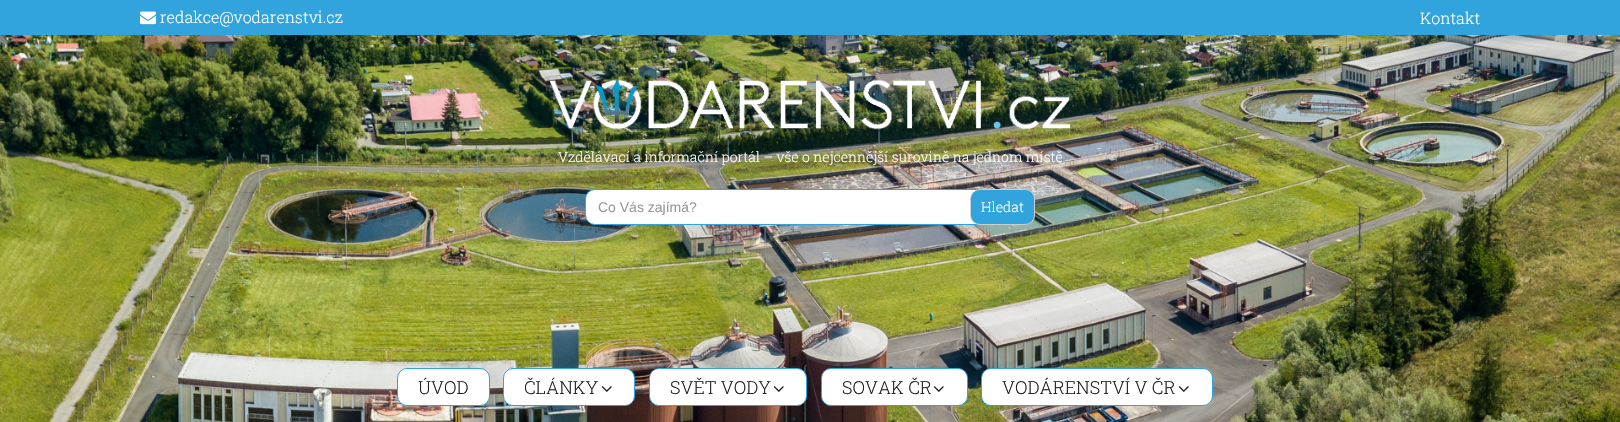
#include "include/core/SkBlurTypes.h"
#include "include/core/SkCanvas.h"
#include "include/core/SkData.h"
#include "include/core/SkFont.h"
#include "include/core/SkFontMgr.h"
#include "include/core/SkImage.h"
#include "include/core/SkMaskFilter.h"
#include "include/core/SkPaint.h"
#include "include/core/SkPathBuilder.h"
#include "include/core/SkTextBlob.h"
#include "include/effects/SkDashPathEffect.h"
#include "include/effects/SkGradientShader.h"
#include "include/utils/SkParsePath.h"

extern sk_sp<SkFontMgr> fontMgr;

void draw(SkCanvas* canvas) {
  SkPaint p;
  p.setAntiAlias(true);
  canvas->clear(SK_ColorWHITE);
  canvas->drawImageRect(SkImages::DeferredFromEncodedData(SkData::MakeFromFileName("images/1.png")), SkRect::MakeLTRB(0, 35, 1620, 422), SkSamplingOptions());
  p.setColor(SkColorSetRGB(49, 163, 221));
  canvas->drawRect(SkRect::MakeLTRB(0, 0, 1620, 35), p);
  canvas->drawImageRect(SkImages::DeferredFromEncodedData(SkData::MakeFromFileName("images/2.png")), SkRect::MakeLTRB(140, 11, 156, 25), SkSamplingOptions());
  canvas->drawImageRect(SkImages::DeferredFromEncodedData(SkData::MakeFromFileName("images/3.png")), SkRect::MakeLTRB(549, 79, 1071, 130), SkSamplingOptions());
  p.setColor(SK_ColorWHITE);
  canvas->drawRoundRect(SkRect::MakeLTRB(585.5f, 189.5f, 1034.5f, 224.5f), 9.5f, 9.5f, p);
  p.setStyle(SkPaint::kStroke_Style);
  p.setStrokeWidth(1);
  p.setColor(SkColorSetRGB(49, 163, 221));
  canvas->drawRoundRect(SkRect::MakeLTRB(585.5f, 189.5f, 1034.5f, 224.5f), 9.5f, 9.5f, p);
  p.setStyle(SkPaint::kFill_Style);
  canvas->drawRoundRect(SkRect::MakeLTRB(970.5f, 189.5f, 1034.5f, 224.5f), 9.5f, 9.5f, p);
  p.setStyle(SkPaint::kStroke_Style);
  p.setColor(SkColorSetRGB(204, 204, 204));
  canvas->drawRoundRect(SkRect::MakeLTRB(970.5f, 189.5f, 1034.5f, 224.5f), 9.5f, 9.5f, p);
  p.setStyle(SkPaint::kFill_Style);
  p.setColor(SK_ColorWHITE);
  canvas->drawRoundRect(SkRect::MakeLTRB(397.5f, 368.5f, 489.5f, 405.5f), 9.5f, 9.5f, p);
  p.setStyle(SkPaint::kStroke_Style);
  p.setColor(SkColorSetRGB(49, 163, 221));
  canvas->drawRoundRect(SkRect::MakeLTRB(397.5f, 368.5f, 489.5f, 405.5f), 9.5f, 9.5f, p);
  p.setStyle(SkPaint::kFill_Style);
  p.setColor(SK_ColorWHITE);
  canvas->drawRoundRect(SkRect::MakeLTRB(503.5f, 368.5f, 634.5f, 405.5f), 9.5f, 9.5f, p);
  p.setStyle(SkPaint::kStroke_Style);
  p.setColor(SkColorSetRGB(49, 163, 221));
  canvas->drawRoundRect(SkRect::MakeLTRB(503.5f, 368.5f, 634.5f, 405.5f), 9.5f, 9.5f, p);
  canvas->drawImageRect(SkImages::DeferredFromEncodedData(SkData::MakeFromFileName("images/4.png")), SkRect::MakeLTRB(601, 386, 612, 392), SkSamplingOptions());
  p.setStyle(SkPaint::kFill_Style);
  p.setColor(SK_ColorWHITE);
  canvas->drawRoundRect(SkRect::MakeLTRB(649.5f, 368.5f, 806.5f, 405.5f), 9.5f, 9.5f, p);
  p.setStyle(SkPaint::kStroke_Style);
  p.setColor(SkColorSetRGB(49, 163, 221));
  canvas->drawRoundRect(SkRect::MakeLTRB(649.5f, 368.5f, 806.5f, 405.5f), 9.5f, 9.5f, p);
  canvas->drawImageRect(SkImages::DeferredFromEncodedData(SkData::MakeFromFileName("images/4.png")), SkRect::MakeLTRB(773, 386, 784, 392), SkSamplingOptions());
  p.setStyle(SkPaint::kFill_Style);
  p.setColor(SK_ColorWHITE);
  canvas->drawRoundRect(SkRect::MakeLTRB(821.5f, 368.5f, 967.5f, 405.5f), 9.5f, 9.5f, p);
  p.setStyle(SkPaint::kStroke_Style);
  p.setColor(SkColorSetRGB(49, 163, 221));
  canvas->drawRoundRect(SkRect::MakeLTRB(821.5f, 368.5f, 967.5f, 405.5f), 9.5f, 9.5f, p);
  canvas->drawImageRect(SkImages::DeferredFromEncodedData(SkData::MakeFromFileName("images/4.png")), SkRect::MakeLTRB(933, 386, 944, 392), SkSamplingOptions());
  p.setStyle(SkPaint::kFill_Style);
  p.setColor(SK_ColorWHITE);
  canvas->drawRoundRect(SkRect::MakeLTRB(981.5f, 368.5f, 1212.5f, 405.5f), 9.5f, 9.5f, p);
  p.setStyle(SkPaint::kStroke_Style);
  p.setColor(SkColorSetRGB(49, 163, 221));
  canvas->drawRoundRect(SkRect::MakeLTRB(981.5f, 368.5f, 1212.5f, 405.5f), 9.5f, 9.5f, p);
  canvas->drawImageRect(SkImages::DeferredFromEncodedData(SkData::MakeFromFileName("images/4.png")), SkRect::MakeLTRB(1178, 386, 1189, 392), SkSamplingOptions());
  SkFont font1(fontMgr->matchFamilyStyle("Roboto Slab", SkFontStyle(300, SkFontStyle::kNormal_Width, SkFontStyle::kUpright_Slant)), 16);
  font1.setSubpixel(true);
  p.setStyle(SkPaint::kFill_Style);
  p.setColor(SK_ColorWHITE);
  canvas->drawString("redakce@vodarenstvi.cz", 160, 23, font1, p);
  canvas->drawString("Kontakt", 1420, 24, font1, p);
  SkFont font2(fontMgr->matchFamilyStyle("Roboto Slab", SkFontStyle(300, SkFontStyle::kNormal_Width, SkFontStyle::kUpright_Slant)), 14);
  font2.setSubpixel(true);
  canvas->drawString("Vzdělávací a informační portál – vše o nejcennější surovině na jednom místě", 558, 162, font2, p);
  SkFont font3(fontMgr->matchFamilyStyle("Liberation Sans", SkFontStyle::Normal()), 14);
  font3.setSubpixel(true);
  p.setColor(SkColorSetRGB(153, 153, 153));
  canvas->drawString("Co Vás zajímá?", 598, 212, font3, p);
  p.setColor(SK_ColorWHITE);
  canvas->drawString("Hledat", 981, 212, font2, p);
  SkFont font4(fontMgr->matchFamilyStyle("Roboto Slab", SkFontStyle(300, SkFontStyle::kNormal_Width, SkFontStyle::kUpright_Slant)), 18);
  font4.setSubpixel(true);
  p.setColor(SkColorSetRGB(34, 34, 34));
  canvas->drawString("ÚVOD", 418, 394, font4, p);
  canvas->drawString("ČLÁNKY", 524, 394, font4, p);
  canvas->drawString("SVĚT VODY", 670, 394, font4, p);
  canvas->drawString("SOVAK ČR", 842, 394, font4, p);
  canvas->drawString("VODÁRENSTVÍ V ČR", 1002, 394, font4, p);
}
